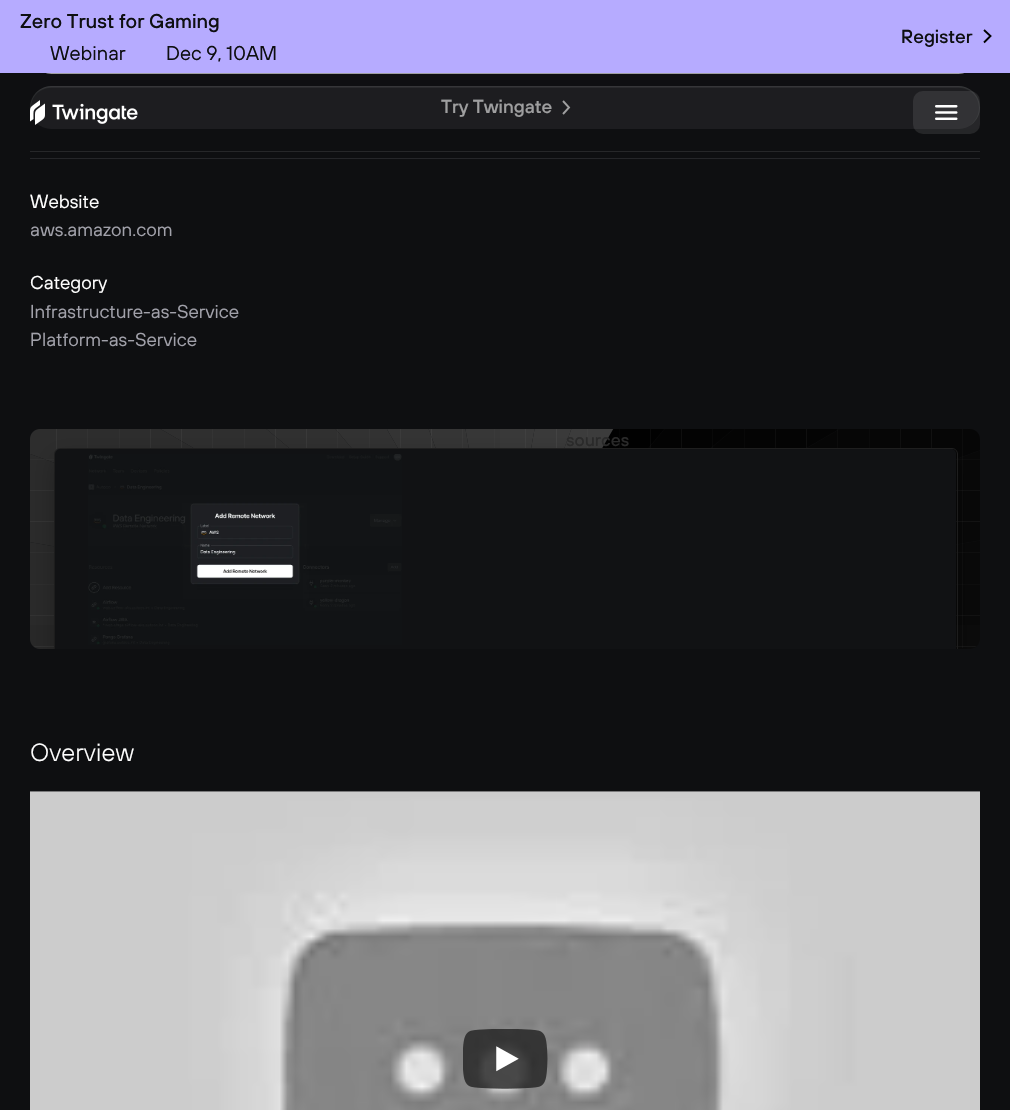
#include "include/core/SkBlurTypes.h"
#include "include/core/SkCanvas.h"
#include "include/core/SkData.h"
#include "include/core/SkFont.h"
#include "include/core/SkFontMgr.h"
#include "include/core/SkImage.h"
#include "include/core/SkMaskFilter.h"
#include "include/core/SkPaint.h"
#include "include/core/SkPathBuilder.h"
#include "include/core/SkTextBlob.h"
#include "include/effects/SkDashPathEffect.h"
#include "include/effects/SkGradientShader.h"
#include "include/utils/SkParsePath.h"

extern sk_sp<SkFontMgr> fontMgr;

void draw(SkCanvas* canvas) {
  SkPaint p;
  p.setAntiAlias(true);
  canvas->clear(SkColorSetRGB(14, 15, 17));
  p.setColor(SK_ColorWHITE);
  canvas->drawRoundRect(SkRect::MakeLTRB(30, 31, 980, 74), 21.5f, 21.5f, p);
  p.setColor(SkColorSetRGB(182, 171, 255));
  canvas->drawRect(SkRect::MakeLTRB(0, 0, 1010, 73), p);
  p.setStyle(SkPaint::kStroke_Style);
  p.setStrokeWidth(1.9f);
  p.setColor(SK_ColorBLACK);
  canvas->drawPath(SkPathBuilder().moveTo(984, 30).lineTo(990.5f, 36).lineTo(984, 42.5f).detach(), p);
  p.setStyle(SkPaint::kFill_Style);
  p.setColor(SkColorSetRGB(38, 39, 41));
  canvas->drawRect(SkRect::MakeLTRB(30, 151, 980, 152), p);
  p.setColor(SkColorSetRGB(37, 38, 41));
  canvas->drawRoundRect(SkRect::MakeLTRB(30, 86, 980, 129), 21.5f, 21.5f, p);
  p.setColor(SkColorSetARGB(26, 255, 255, 255));
  canvas->drawPath(SkPathBuilder().moveTo(51, 87).lineTo(959, 87).cubicTo(965, 87, 971, 90, 975, 94).cubicTo(971, 89, 965, 86, 958, 86).lineTo(52, 86).cubicTo(45, 86, 39, 89, 35, 94).cubicTo(39, 90, 45, 87, 51, 87).close().detach(), p);
  p.setStyle(SkPaint::kStroke_Style);
  p.setColor(SK_ColorWHITE);
  canvas->drawPath(SkPathBuilder().moveTo(563, 101).lineTo(569, 107.5f).lineTo(563, 114).detach(), p);
  p.setStyle(SkPaint::kFill_Style);
  p.setColor(SkColorSetARGB(26, 255, 255, 255));
  canvas->drawPath(SkPathBuilder(SkPathFillType::kEvenOdd).moveTo(51, 86).lineTo(959, 86).cubicTo(970, 86, 980, 96, 980, 108).cubicTo(980, 119, 970, 129, 959, 129).lineTo(51, 129).cubicTo(40, 129, 30, 119, 30, 108).cubicTo(30, 96, 40, 86, 51, 86).close().moveTo(51, 88).lineTo(959, 88).cubicTo(970, 88, 979, 96, 979, 108).cubicTo(979, 119, 970, 129, 959, 129).lineTo(51, 129).cubicTo(40, 129, 31, 119, 31, 108).cubicTo(31, 96, 40, 88, 51, 88).close().detach(), p);
  p.setColor(SkColorSetRGB(37, 38, 41));
  canvas->drawRect(SkRect::MakeLTRB(30, 158, 980, 159), p);
  canvas->drawImageRect(SkImages::DeferredFromEncodedData(SkData::MakeFromFileName("images/4.png")), SkRect::MakeLTRB(30, 429, 980, 649), SkSamplingOptions());
  canvas->drawImageRect(SkImages::DeferredFromEncodedData(SkData::MakeFromFileName("images/5.png")), SkRect::MakeLTRB(30, 429, 980, 648), SkSamplingOptions());
  p.setColor(SkColorSetRGB(33, 33, 33));
  canvas->drawPath(SkPathBuilder().moveTo(60, 448).cubicTo(57, 448, 54, 451, 54, 454).lineTo(54, 649).lineTo(55, 649).lineTo(55, 454).cubicTo(55, 451, 57, 449, 60, 449).lineTo(952, 449).cubicTo(955, 449, 957, 451, 957, 454).lineTo(957, 649).lineTo(958, 649).lineTo(958, 454).cubicTo(958, 451, 955, 448, 952, 448).close().detach(), p);
  canvas->save();
  canvas->clipPath(SkPathBuilder().moveTo(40, 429).lineTo(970, 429).cubicTo(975.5f, 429, 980, 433.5f, 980, 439).lineTo(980, 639).cubicTo(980, 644.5f, 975.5f, 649, 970, 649).lineTo(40, 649).cubicTo(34.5f, 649, 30, 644.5f, 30, 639).lineTo(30, 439).cubicTo(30, 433.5f, 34.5f, 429, 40, 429).close().detach(), true);
  p.setColor(SkColorSetARGB(64, 0, 0, 0));
  p.setMaskFilter(SkMaskFilter::MakeBlur(kNormal_SkBlurStyle, 11.5f));
  canvas->drawRoundRect(SkRect::MakeLTRB(55, 458, 956, 690), 5, 5, p);
  p.setMaskFilter(nullptr);
  canvas->restore();
  p.setColor(SkColorSetRGB(17, 18, 20));
  canvas->drawPath(SkPathBuilder().moveTo(60, 449).lineTo(951, 449).cubicTo(954, 449, 956, 451, 956, 454).lineTo(956, 649).lineTo(55, 649).lineTo(55, 454).cubicTo(55, 451, 57, 449, 60, 449).close().detach(), p);
  canvas->drawImageRect(SkImages::DeferredFromEncodedData(SkData::MakeFromFileName("images/3.png")), SkRect::MakeLTRB(88, 454, 402, 645), SkSamplingOptions());
  canvas->drawImageRect(SkImages::DeferredFromEncodedData(SkData::MakeFromFileName("images/6.png")), SkRect::MakeLTRB(30, 791, 980, 1110), SkSamplingOptions());
  canvas->drawImageRect(SkImages::DeferredFromEncodedData(SkData::MakeFromFileName("images/7.png")), SkRect::MakeLTRB(463, 1029, 548, 1089), SkSamplingOptions());
  SkFont font1(fontMgr->matchFamilyStyle("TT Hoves", SkFontStyle(500, SkFontStyle::kNormal_Width, SkFontStyle::kUpright_Slant)), 20);
  font1.setSubpixel(true);
  p.setColor(SkColorSetRGB(14, 15, 17));
  canvas->drawString("Zero Trust for Gaming", 20, 28, font1, p);
  SkFont font2(fontMgr->matchFamilyStyle("TT Hoves", SkFontStyle::Normal()), 20);
  font2.setSubpixel(true);
  canvas->drawString("Webinar", 50, 60, font2, p);
  canvas->drawString("Dec 9, 10AM", 166, 60, font2, p);
  SkFont font3(fontMgr->matchFamilyStyle("TT Hoves", SkFontStyle(500, SkFontStyle::kNormal_Width, SkFontStyle::kUpright_Slant)), 18.75f);
  font3.setSubpixel(true);
  canvas->drawString("Register", 901, 43, font3, p);
  SkFont font4(fontMgr->matchFamilyStyle("TT Hoves", SkFontStyle(500, SkFontStyle::kNormal_Width, SkFontStyle::kUpright_Slant)), 17.5f);
  font4.setSubpixel(true);
  p.setColor(SkColorSetRGB(42, 42, 42));
  canvas->drawString("sources", 566, 446, font4, p);
  p.setColor(SK_ColorWHITE);
  canvas->drawString("Try Twingate", 441, 113, font3, p);
  p.setColor(SkColorSetARGB(102, 14, 15, 17));
  canvas->drawRect(SkRect::MakeLTRB(30, 73, 980, 129), p);
  p.setColor(SkColorSetARGB(26, 240, 240, 240));
  canvas->drawRoundRect(SkRect::MakeLTRB(913, 91, 980, 134), 10, 10, p);
  canvas->drawImageRect(SkImages::DeferredFromEncodedData(SkData::MakeFromFileName("images/2.png")), SkRect::MakeLTRB(935, 105, 958, 120), SkSamplingOptions());
  canvas->drawImageRect(SkImages::DeferredFromEncodedData(SkData::MakeFromFileName("images/1.png")), SkRect::MakeLTRB(30, 100, 138, 125), SkSamplingOptions());
  SkFont font5(fontMgr->matchFamilyStyle("TT Hoves", SkFontStyle::Normal()), 18.75f);
  font5.setSubpixel(true);
  p.setColor(SK_ColorWHITE);
  canvas->drawString("Website", 30, 208, font5, p);
  p.setColor(SkColorSetRGB(161, 161, 170));
  canvas->drawString("aws.amazon.com", 30, 236, font5, p);
  p.setColor(SK_ColorWHITE);
  canvas->drawString("Category", 30, 289, font5, p);
  p.setColor(SkColorSetRGB(161, 161, 170));
  canvas->drawString("Infrastructure-as-Service", 30, 318, font5, p);
  canvas->drawString("Platform-as-Service", 30, 346, font5, p);
  SkFont font6(fontMgr->matchFamilyStyle("TT Hoves", SkFontStyle(300, SkFontStyle::kNormal_Width, SkFontStyle::kUpright_Slant)), 25);
  font6.setSubpixel(true);
  p.setColor(SK_ColorWHITE);
  canvas->drawString("Overview", 30, 761, font6, p);
}
